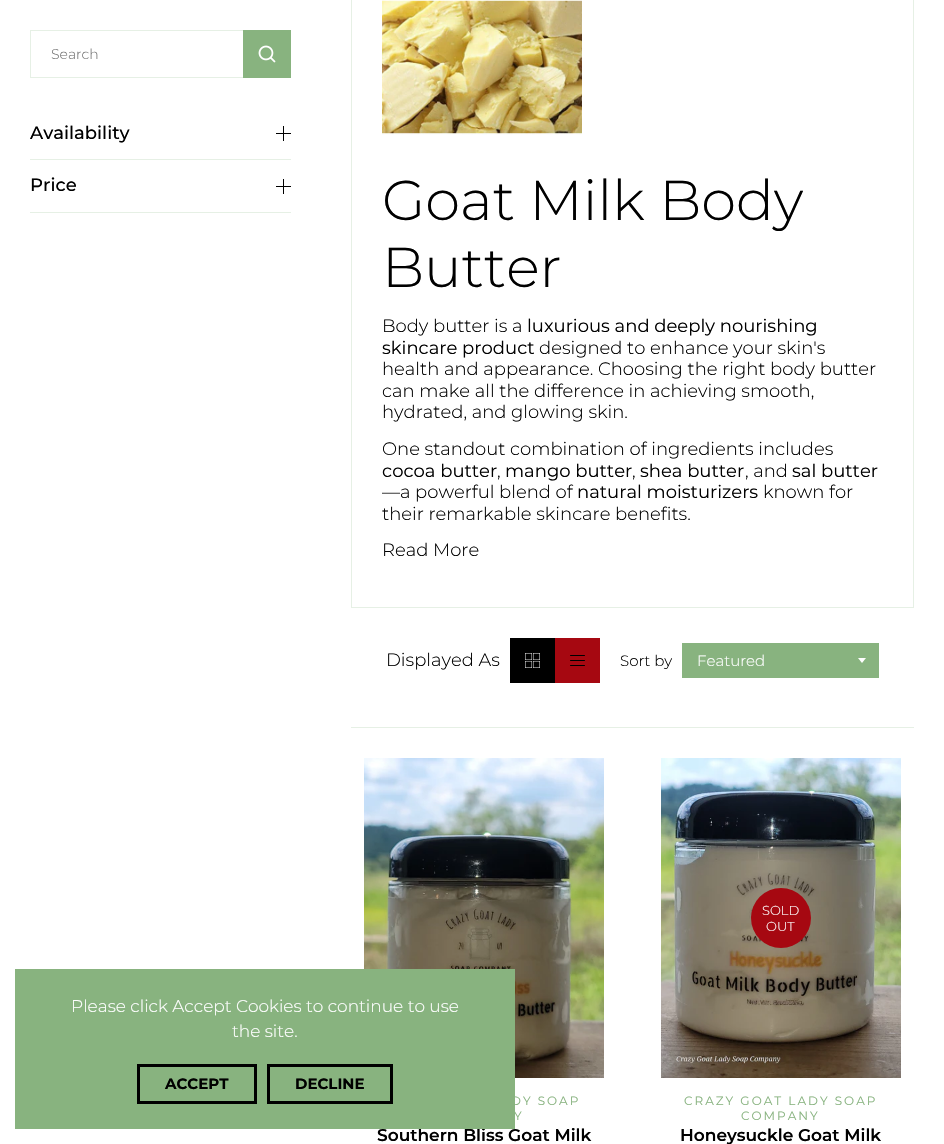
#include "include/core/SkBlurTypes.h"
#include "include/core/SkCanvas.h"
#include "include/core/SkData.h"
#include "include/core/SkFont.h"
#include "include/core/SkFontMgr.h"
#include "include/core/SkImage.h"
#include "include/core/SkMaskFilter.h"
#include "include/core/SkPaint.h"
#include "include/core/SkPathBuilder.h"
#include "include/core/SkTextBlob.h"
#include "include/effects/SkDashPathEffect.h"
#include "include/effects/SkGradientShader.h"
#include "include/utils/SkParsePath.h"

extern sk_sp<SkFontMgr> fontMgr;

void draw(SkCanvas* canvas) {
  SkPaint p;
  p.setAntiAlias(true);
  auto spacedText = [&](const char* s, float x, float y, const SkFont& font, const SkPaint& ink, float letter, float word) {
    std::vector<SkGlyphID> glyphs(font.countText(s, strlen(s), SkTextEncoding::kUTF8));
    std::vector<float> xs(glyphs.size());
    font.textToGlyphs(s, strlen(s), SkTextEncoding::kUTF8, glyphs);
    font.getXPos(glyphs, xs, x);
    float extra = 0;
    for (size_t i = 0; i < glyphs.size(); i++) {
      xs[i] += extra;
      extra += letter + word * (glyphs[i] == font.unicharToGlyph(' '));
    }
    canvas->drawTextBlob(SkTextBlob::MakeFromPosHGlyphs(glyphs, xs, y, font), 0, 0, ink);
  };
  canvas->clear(SK_ColorWHITE);
  p.setStyle(SkPaint::kStroke_Style);
  p.setStrokeWidth(1);
  p.setColor(SkColorSetRGB(230, 240, 229));
  canvas->drawRect(SkRect::MakeLTRB(30.5f, 30.5f, 254.5f, 77.5f), p);
  p.setStyle(SkPaint::kFill_Style);
  p.setColor(SkColorSetRGB(136, 179, 127));
  canvas->drawRect(SkRect::MakeLTRB(243, 30, 291, 78), p);
  canvas->drawImageRect(SkImages::DeferredFromEncodedData(SkData::MakeFromFileName("images/1.png")), SkRect::MakeLTRB(258, 45, 276, 63), SkSamplingOptions());
  p.setColor(SkColorSetRGB(230, 240, 229));
  canvas->drawRect(SkRect::MakeLTRB(30, 159, 291, 160), p);
  p.setColor(SK_ColorBLACK);
  canvas->drawRect(SkRect::MakeLTRB(276, 133, 291, 134), p);
  canvas->drawRect(SkRect::MakeLTRB(283, 126, 284, 141), p);
  p.setColor(SkColorSetRGB(230, 240, 229));
  canvas->drawRect(SkRect::MakeLTRB(30, 212, 291, 213), p);
  p.setColor(SK_ColorBLACK);
  canvas->drawRect(SkRect::MakeLTRB(276, 186, 291, 187), p);
  canvas->drawRect(SkRect::MakeLTRB(283, 179, 284, 194), p);
  p.setStyle(SkPaint::kStroke_Style);
  p.setColor(SkColorSetRGB(230, 240, 229));
  canvas->drawRect(SkRect::MakeLTRB(351.5f, -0.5f, 913.5f, 607.5f), p);
  canvas->drawImageRect(SkImages::DeferredFromEncodedData(SkData::MakeFromFileName("images/2.png")), SkRect::MakeLTRB(382, 0, 582, 135), SkSamplingOptions());
  p.setStyle(SkPaint::kFill_Style);
  p.setColor(SkColorSetRGB(166, 8, 17));
  canvas->drawRect(SkRect::MakeLTRB(555, 638, 600, 683), p);
  p.setColor(SK_ColorBLACK);
  canvas->drawRect(SkRect::MakeLTRB(510, 638, 555, 683), p);
  canvas->drawImageRect(SkImages::DeferredFromEncodedData(SkData::MakeFromFileName("images/3.png")), SkRect::MakeLTRB(525, 653, 540, 668), SkSamplingOptions());
  canvas->drawRoundRect(SkRect::MakeLTRB(570, 655, 585, 656), 0.5f, 0.5f, p);
  canvas->drawRoundRect(SkRect::MakeLTRB(570, 660, 585, 661), 0.5f, 0.5f, p);
  canvas->drawRoundRect(SkRect::MakeLTRB(570, 665, 585, 666), 0.5f, 0.5f, p);
  p.setColor(SkColorSetRGB(136, 179, 127));
  canvas->drawRect(SkRect::MakeLTRB(682, 643, 879, 678), p);
  p.setColor(SK_ColorWHITE);
  canvas->drawPath(SkPathBuilder().moveTo(858, 658).lineTo(866, 658).lineTo(862, 663).close().detach(), p);
  p.setColor(SkColorSetRGB(230, 240, 229));
  canvas->drawRect(SkRect::MakeLTRB(351, 727, 914, 728), p);
  canvas->drawImageRect(SkImages::DeferredFromEncodedData(SkData::MakeFromFileName("images/4.png")), SkRect::MakeLTRB(364, 758, 604, 1078), SkSamplingOptions());
  canvas->drawImageRect(SkImages::DeferredFromEncodedData(SkData::MakeFromFileName("images/5.png")), SkRect::MakeLTRB(661, 758, 901, 1078), SkSamplingOptions());
  p.setColor(SkColorSetRGB(166, 8, 17));
  canvas->drawCircle(781, 918, 30, p);
  SkFont font1(fontMgr->matchFamilyStyle("Montserrat", SkFontStyle(300, SkFontStyle::kNormal_Width, SkFontStyle::kUpright_Slant)), 14);
  font1.setSubpixel(true);
  p.setColor(SkColorSetRGB(117, 117, 117));
  canvas->drawString("Search", 51, 59, font1, p);
  SkFont font2(fontMgr->matchFamilyStyle("Montserrat", SkFontStyle(500, SkFontStyle::kNormal_Width, SkFontStyle::kUpright_Slant)), 18);
  font2.setSubpixel(true);
  p.setColor(SK_ColorBLACK);
  canvas->drawString("Availability", 30, 139, font2, p);
  canvas->drawString("Price", 30, 191, font2, p);
  SkFont font3(fontMgr->matchFamilyStyle("Montserrat", SkFontStyle(300, SkFontStyle::kNormal_Width, SkFontStyle::kUpright_Slant)), 56);
  font3.setSubpixel(true);
  canvas->drawString("Goat Milk Body", 382, 220, font3, p);
  canvas->drawString("Butter", 382, 287, font3, p);
  SkFont font4(fontMgr->matchFamilyStyle("Montserrat", SkFontStyle(300, SkFontStyle::kNormal_Width, SkFontStyle::kUpright_Slant)), 18);
  font4.setSubpixel(true);
  canvas->drawString("Body butter is a", 382, 332, font4, p);
  SkFont font5(fontMgr->matchFamilyStyle("Montserrat", SkFontStyle::Normal()), 18);
  font5.setSubpixel(true);
  canvas->drawString("luxurious and deeply nourishing", 527, 332, font5, p);
  canvas->drawString("skincare product", 382, 354, font5, p);
  canvas->drawString("designed to enhance your skin's", 539, 354, font4, p);
  canvas->drawString("health and appearance. Choosing the right body butter", 382, 375, font4, p);
  canvas->drawString("can make all the difference in achieving smooth,", 382, 397, font4, p);
  canvas->drawString("hydrated, and glowing skin.", 382, 418, font4, p);
  canvas->drawString("One standout combination of ingredients includes", 382, 455, font4, p);
  canvas->drawString("cocoa butter", 382, 477, font5, p);
  canvas->drawString(",", 497, 477, font4, p);
  canvas->drawString("mango butter", 505, 477, font5, p);
  canvas->drawString(",", 632, 477, font4, p);
  canvas->drawString("shea butter", 640, 477, font5, p);
  canvas->drawString(", and", 745, 477, font4, p);
  canvas->drawString("sal butter", 792, 477, font5, p);
  canvas->drawString("—a powerful blend of", 382, 498, font4, p);
  canvas->drawString("natural moisturizers", 577, 498, font5, p);
  canvas->drawString("known for", 763, 498, font4, p);
  canvas->drawString("their remarkable skincare benefits.", 382, 520, font4, p);
  canvas->drawString("Read More", 382, 556, font4, p);
  canvas->drawString("Displayed As", 386, 666, font4, p);
  SkFont font6(fontMgr->matchFamilyStyle("Montserrat", SkFontStyle(300, SkFontStyle::kNormal_Width, SkFontStyle::kUpright_Slant)), 15);
  font6.setSubpixel(true);
  canvas->drawString("Sort by", 620, 666, font6, p);
  p.setColor(SK_ColorWHITE);
  canvas->drawString("Featured", 697, 666, font6, p);
  SkFont font7(fontMgr->matchFamilyStyle("Montserrat", SkFontStyle::Normal()), 12);
  font7.setSubpixel(true);
  p.setColor(SkColorSetRGB(136, 179, 127));
  spacedText("DY SOAP", 511, 1105, font7, p, 2, 0);
  spacedText("Y", 514, 1120, font7, p, 2, 0);
  SkFont font8(fontMgr->matchFamilyStyle("Montserrat", SkFontStyle(600, SkFontStyle::kNormal_Width, SkFontStyle::kUpright_Slant)), 17);
  font8.setSubpixel(true);
  p.setColor(SK_ColorBLACK);
  canvas->drawString("Southern Bliss Goat Milk", 377, 1141, font8, p);
  SkFont font9(fontMgr->matchFamilyStyle("Montserrat", SkFontStyle(300, SkFontStyle::kNormal_Width, SkFontStyle::kUpright_Slant)), 13);
  font9.setSubpixel(true);
  p.setColor(SK_ColorWHITE);
  canvas->drawString("SOLD", 762, 915, font9, p);
  canvas->drawString("OUT", 766, 931, font9, p);
  p.setColor(SkColorSetRGB(136, 179, 127));
  spacedText("CRAZY GOAT LADY SOAP", 684, 1105, font7, p, 2, 0);
  spacedText("COMPANY", 741, 1120, font7, p, 2, 0);
  p.setColor(SK_ColorBLACK);
  canvas->drawString("Honeysuckle Goat Milk", 680, 1141, font8, p);
  p.setColor(SkColorSetRGB(136, 179, 127));
  canvas->drawRect(SkRect::MakeLTRB(15, 969, 515, 1129), p);
  SkFont font10(fontMgr->matchFamilyStyle("Montserrat", SkFontStyle(300, SkFontStyle::kNormal_Width, SkFontStyle::kUpright_Slant)), 17);
  font10.setSubpixel(true);
  p.setColor(SK_ColorWHITE);
  canvas->drawString("Please click Accept Cookies to continue to use", 71, 1012, font10, p);
  canvas->drawString("the site.", 232, 1037, font10, p);
  p.setStyle(SkPaint::kStroke_Style);
  p.setStrokeWidth(3);
  p.setColor(SK_ColorBLACK);
  canvas->drawRect(SkRect::MakeLTRB(138.5f, 1065.5f, 255.5f, 1102.5f), p);
  SkFont font11(fontMgr->matchFamilyStyle("Montserrat", SkFontStyle::Bold()), 15);
  font11.setSubpixel(true);
  p.setStyle(SkPaint::kFill_Style);
  canvas->drawString("ACCEPT", 165, 1089, font11, p);
  p.setStyle(SkPaint::kStroke_Style);
  canvas->drawRect(SkRect::MakeLTRB(268.5f, 1065.5f, 391.5f, 1102.5f), p);
  p.setStyle(SkPaint::kFill_Style);
  canvas->drawString("DECLINE", 295, 1089, font11, p);
}
